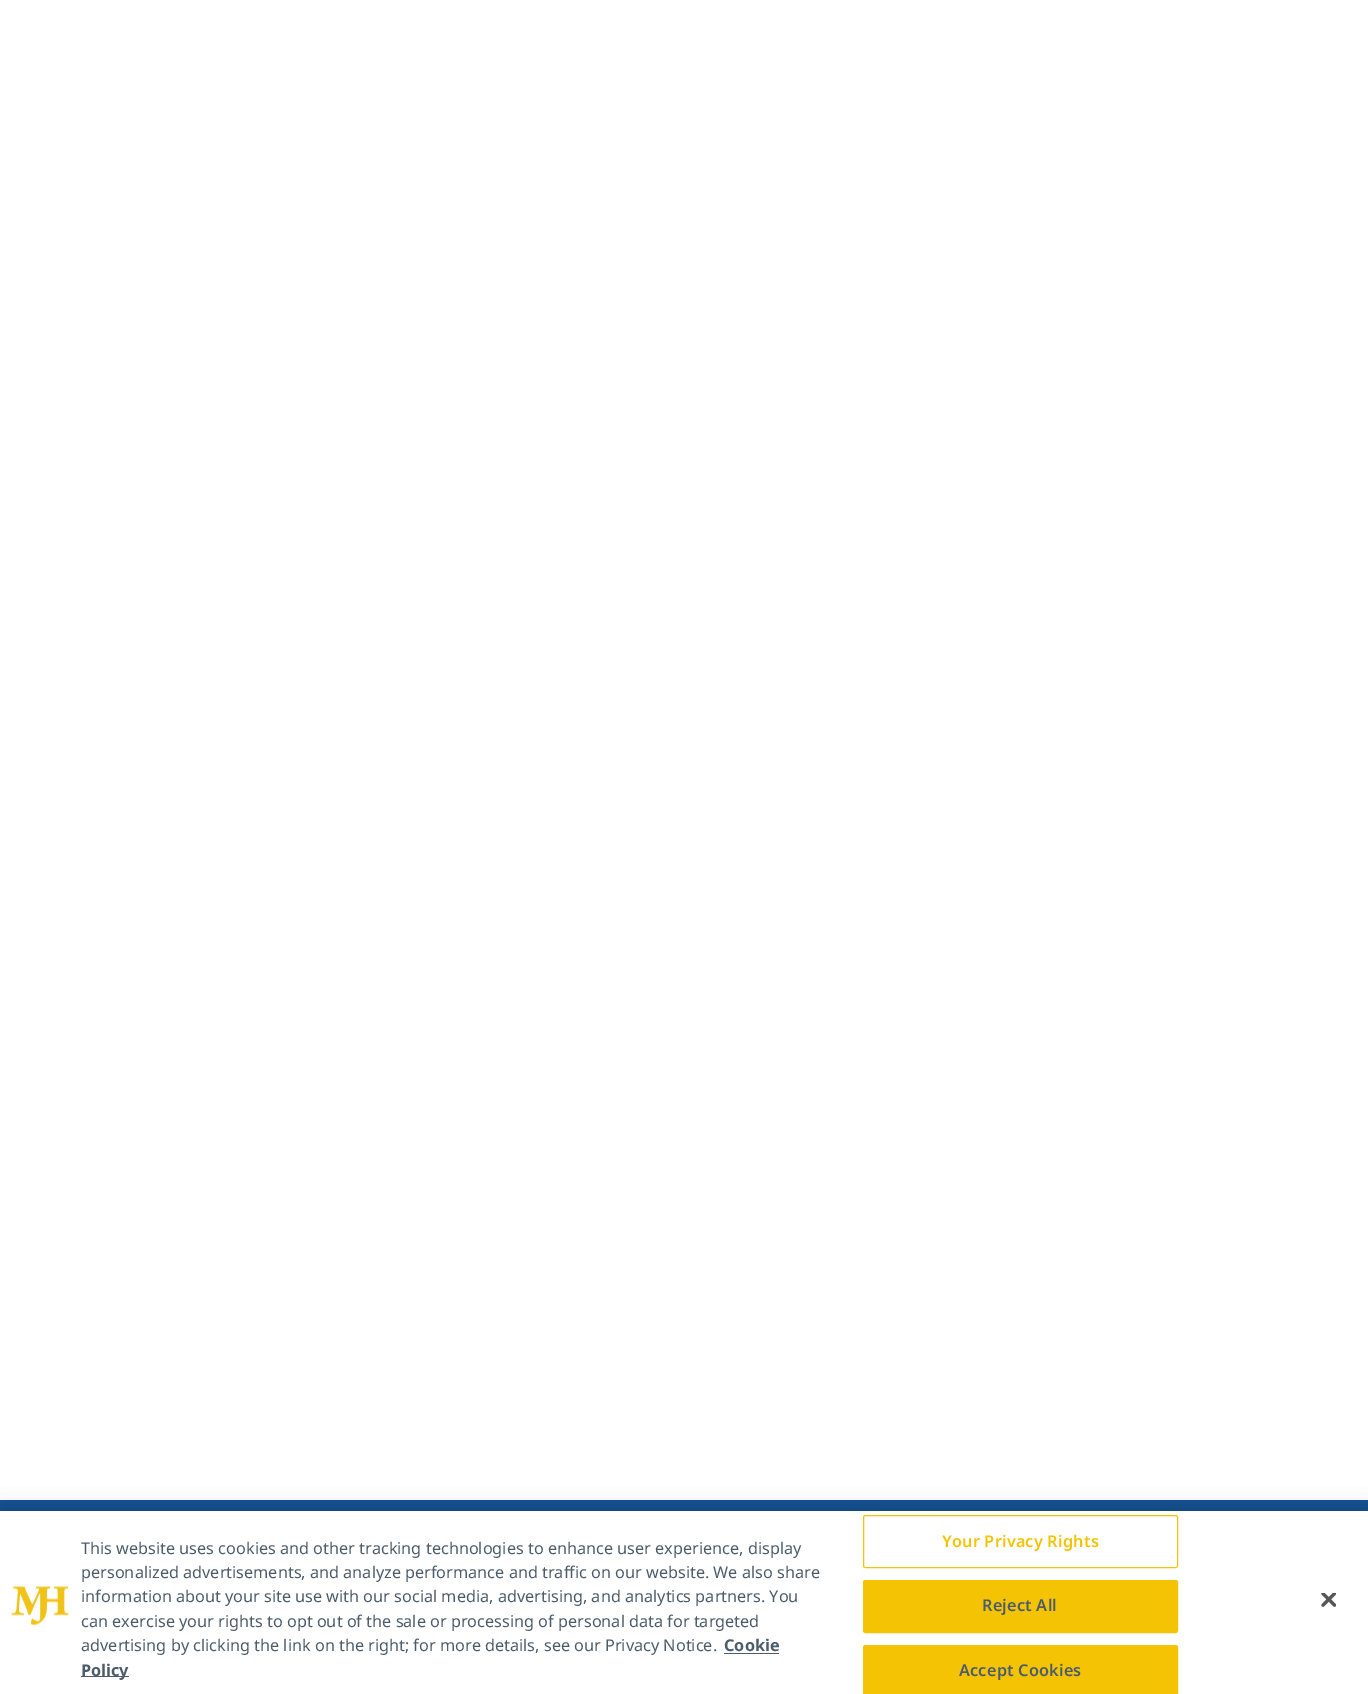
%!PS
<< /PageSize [1368 1694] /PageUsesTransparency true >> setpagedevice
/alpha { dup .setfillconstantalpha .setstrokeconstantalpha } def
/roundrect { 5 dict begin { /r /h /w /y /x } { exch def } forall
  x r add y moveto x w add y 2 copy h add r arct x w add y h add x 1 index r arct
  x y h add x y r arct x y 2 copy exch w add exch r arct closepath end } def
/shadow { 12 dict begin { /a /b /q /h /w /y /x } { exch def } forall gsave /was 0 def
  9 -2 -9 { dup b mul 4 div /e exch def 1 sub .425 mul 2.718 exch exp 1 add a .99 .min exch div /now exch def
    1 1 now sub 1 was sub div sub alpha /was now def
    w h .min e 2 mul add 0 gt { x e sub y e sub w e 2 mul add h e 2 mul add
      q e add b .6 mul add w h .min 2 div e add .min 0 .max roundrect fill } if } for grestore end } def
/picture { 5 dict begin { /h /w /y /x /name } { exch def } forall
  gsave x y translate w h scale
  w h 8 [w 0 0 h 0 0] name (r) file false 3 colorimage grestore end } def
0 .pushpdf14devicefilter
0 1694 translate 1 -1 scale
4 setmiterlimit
1 setgray
0 0 1368 1694 rectfill
0.086 0.322 0.573 setrgbcolor
0 1500 1368 11 rectfill
0 setgray
0 1511 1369 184 0 11 0.2 shadow
1 setgray
0 1511 1368 183 rectfill
(img1.rgb) 11 1586 58 40 picture
/NotoSans-Regular [16.25 0 0 -16.25 0 0] selectfont
0.298 0.361 0.42 setrgbcolor
81 1554 moveto (This website uses cookies and other tracking technologies to enhance user experience, display) show
81 1578 moveto (personalized advertisements, and analyze performance and traffic on our website. We also share) show
81 1602 moveto (information about your site use with our social media, advertising, and analytics partners. You) show
81 1627 moveto (can exercise your rights to opt out of the sale or processing of personal data for targeted) show
81 1651 moveto (advertising by clicking the link on the right; for more details, see our Privacy Notice.) show
/NotoSans-Bold [16.25 0 0 -16.25 0 0] selectfont
724 1651 moveto (Cookie) show
724 1653 55 1 rectfill
81 1676 48 1 rectfill
81 1676 moveto (Policy) show
0.957 0.769 0.016 setrgbcolor
863.5 1515.5 314 52 2 roundrect stroke
/NotoSans-SemiBold [16.25 0 0 -16.25 0 0] selectfont
942 1547 moveto 0.2 0 (Your Privacy Rights) ashow
863.5 1580.5 314 52 2 roundrect gsave fill grestore
stroke
0.298 0.361 0.42 setrgbcolor
982 1611 moveto 0.2 0 (Reject All) ashow
0.957 0.769 0.016 setrgbcolor
863.5 1645.5 314 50 2 roundrect gsave fill grestore
stroke
0.298 0.361 0.42 setrgbcolor
959 1676 moveto 0.2 0 (Accept Cookies) ashow
(img2.rgb) 1321 1593 15 14 picture
.poppdf14devicefilter showpage
